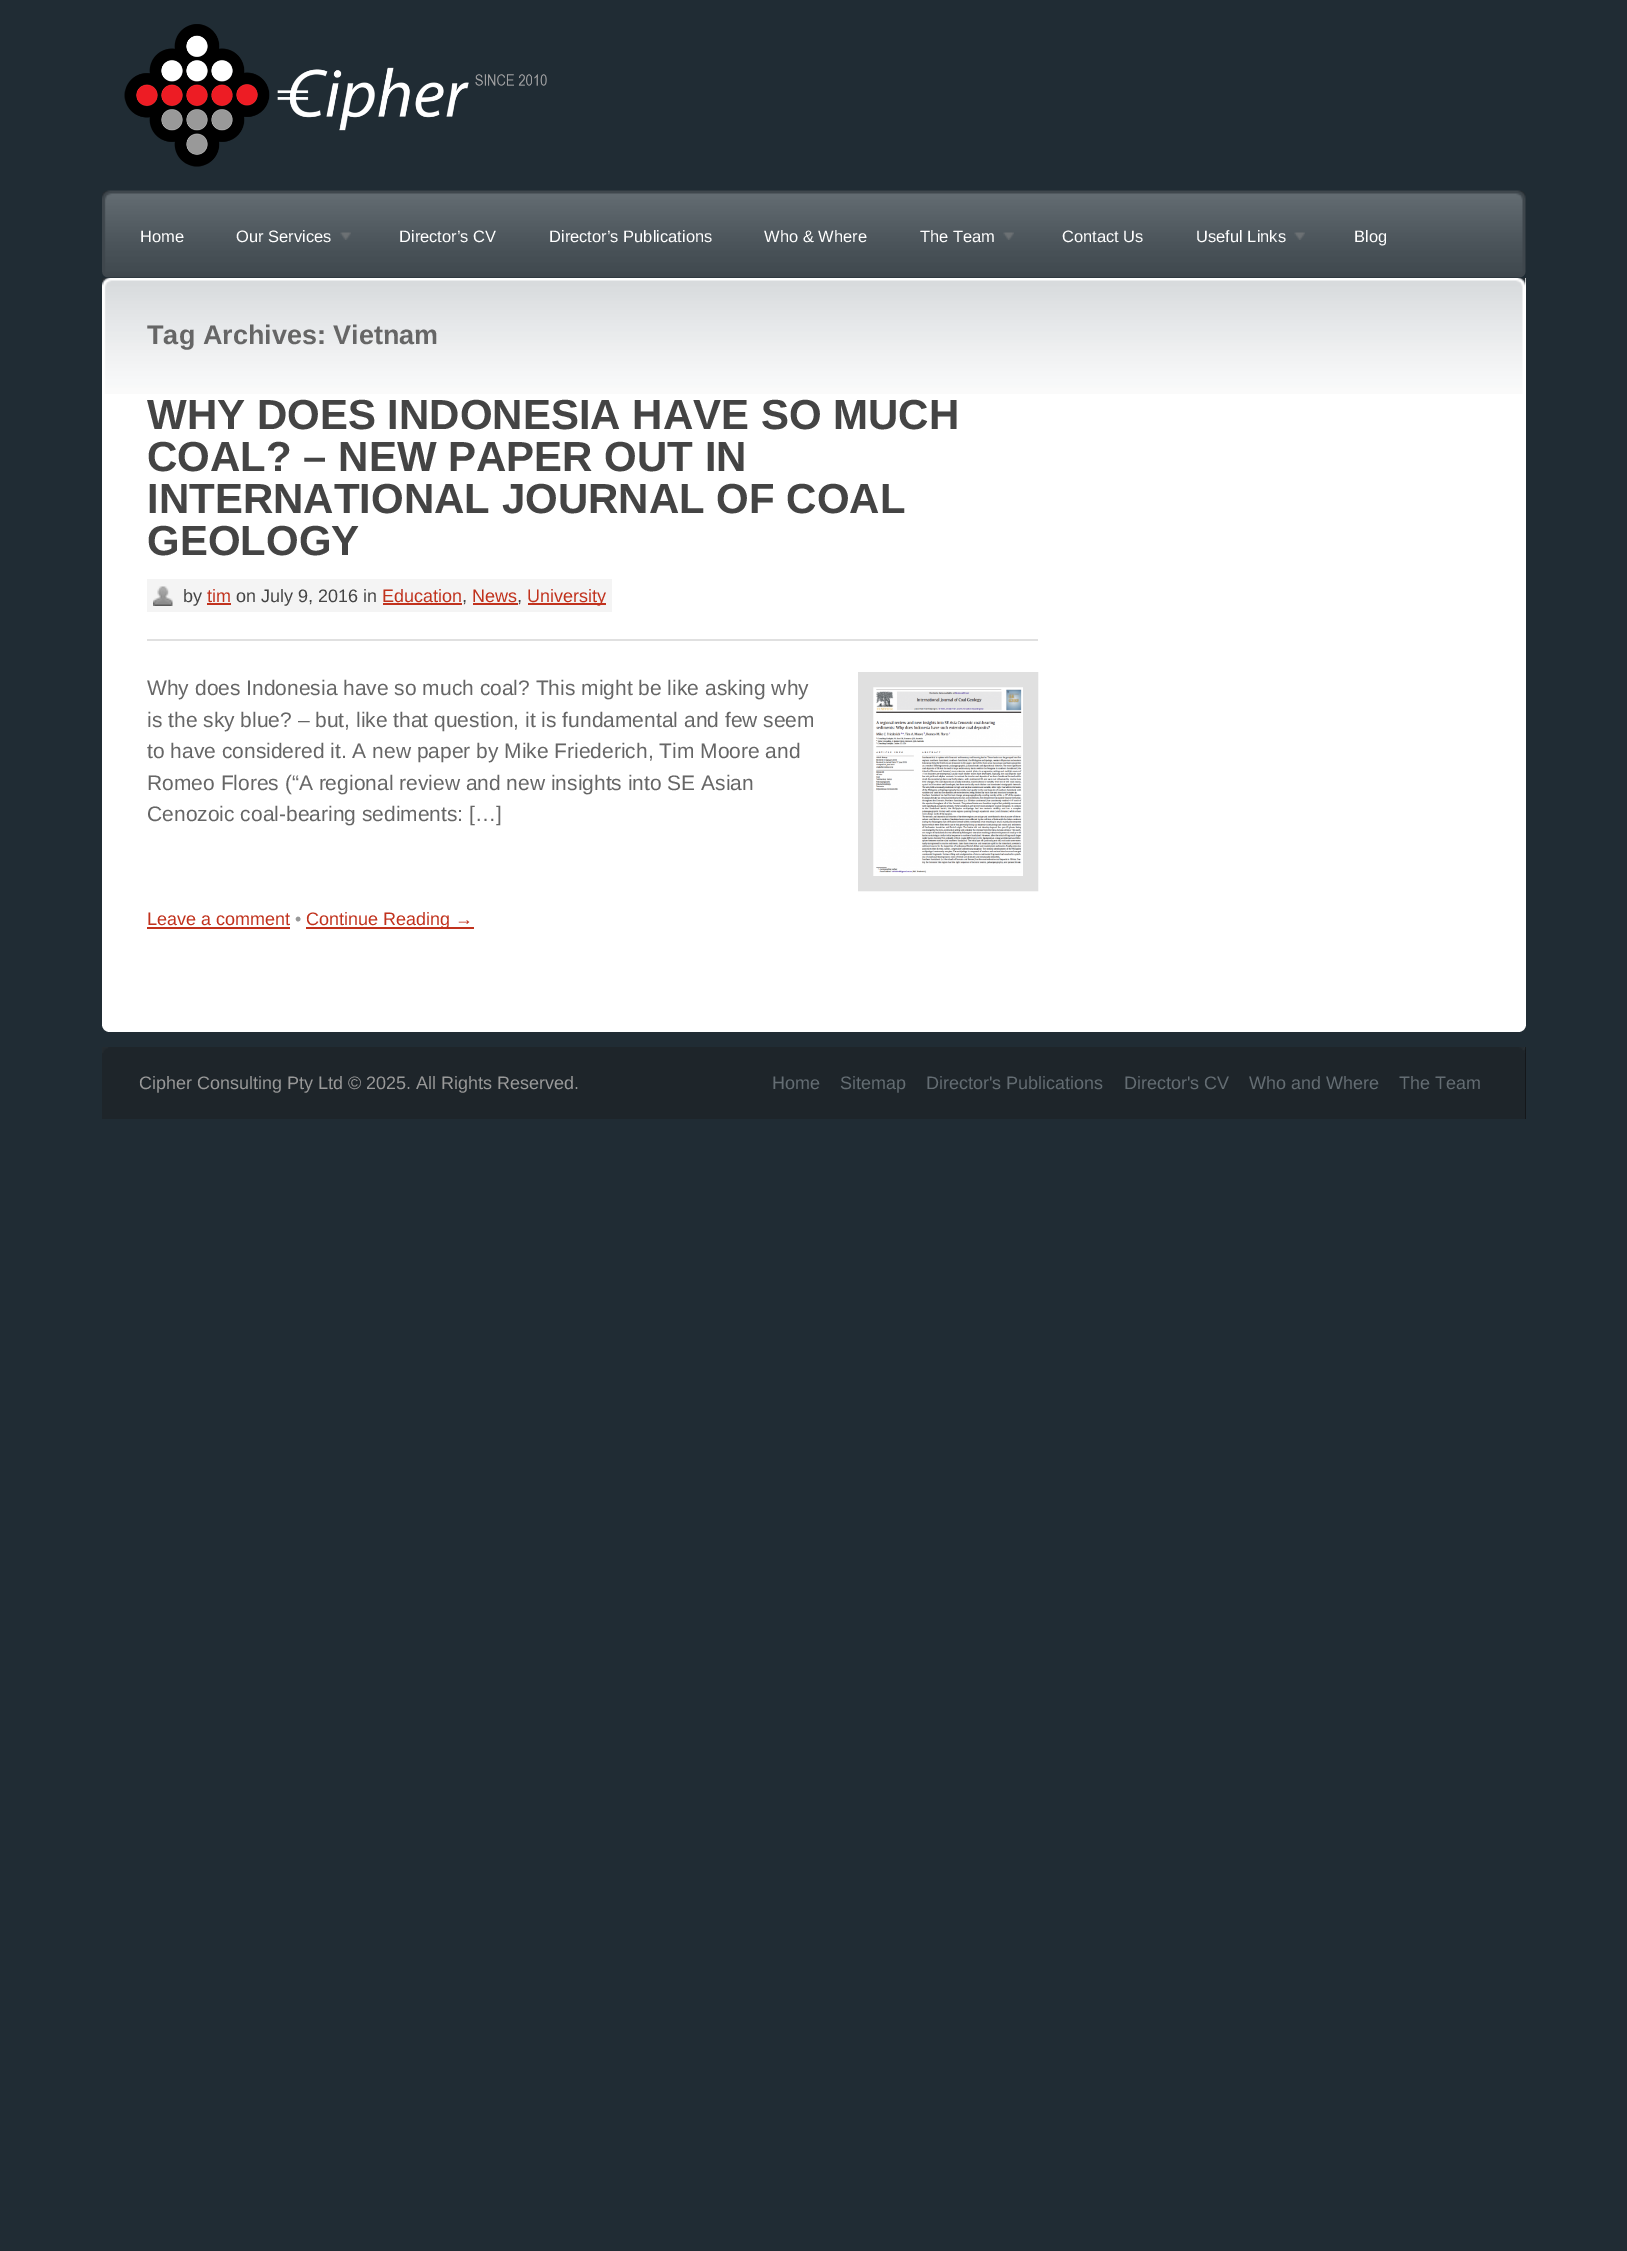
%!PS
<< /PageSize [1627 2251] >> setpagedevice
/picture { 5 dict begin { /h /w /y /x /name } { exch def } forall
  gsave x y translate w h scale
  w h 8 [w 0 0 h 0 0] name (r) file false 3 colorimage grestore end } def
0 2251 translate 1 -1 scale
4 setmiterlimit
0.125 0.173 0.204 setrgbcolor
0 0 1627 2251 rectfill
(img1.rgb) 124 24 423 143 picture
(img2.rgb) 102 190 1424 88 picture
/LiberationSans-Regular [16.5 0 0 -16.5 0 0] selectfont
1 setgray
140 242 moveto (Home) show
236 242 moveto (Our Services) show
(img3.rgb) 340 232 11 8 picture
399 242 moveto (Director’s CV) show
549 242 moveto (Director’s Publications) show
764 242 moveto (Who & Where) show
920 242 moveto (The Team) show
(img3.rgb) 1003 232 11 8 picture
1062 242 moveto (Contact Us) show
1196 242 moveto (Useful Links) show
(img4.rgb) 1294 232 11 8 picture
1354 242 moveto (Blog) show
newpath 102 278 moveto 1526 278 lineto 1526 1024 lineto 1526 1028.5 1522.5 1032 1518 1032 curveto 110 1032 lineto 105.5 1032 102 1028.5 102 1024 curveto closepath fill
(img5.rgb) 102 278 1424 116 picture
/LiberationSans-Bold [27 0 0 -27 0 0] selectfont
0.4 setgray
147 344 moveto (Tag Archives: Vietnam) show
/LiberationSans-Bold [42 0 0 -42 0 0] selectfont
0.267 setgray
147 429 moveto (WHY DOES INDONESIA HAVE SO MUCH) show
147 471 moveto (COAL? – NEW PAPER OUT IN) show
147 513 moveto (INTERNATIONAL JOURNAL OF COAL) show
147 555 moveto (GEOLOGY) show
0.957 setgray
147 579 465 33 rectfill
(img6.rgb) 153 586 20 20 picture
/LiberationSans-Regular [18 0 0 -18 0 0] selectfont
0.267 setgray
183 602 moveto (by) show
0.757 0.196 0.114 setrgbcolor
207 602 moveto (tim) show
207 603 24 2 rectfill
0.267 setgray
236 602 moveto (on July 9, 2016 in) show
0.757 0.196 0.114 setrgbcolor
382 602 moveto (Education) show
0.267 setgray
462 602 moveto (,) show
0.757 0.196 0.114 setrgbcolor
383 603 79 2 rectfill
472 602 moveto (News) show
0.267 setgray
517 602 moveto (,) show
0.757 0.196 0.114 setrgbcolor
473 603 45 2 rectfill
528 603 78 2 rectfill
527 602 moveto (University) show
0.878 setgray
147 639 891 2 rectfill
/LiberationSans-Regular [21 0 0 -21 0 0] selectfont
0.4 setgray
147 695 moveto (Why does Indonesia have so much coal? This might be like asking why) show
147 727 moveto (is the sky blue? – but, like that question, it is fundamental and few seem) show
147 758 moveto (to have considered it. A new paper by Mike Friederich, Tim Moore and) show
147 790 moveto (Romeo Flores \(“A regional review and new insights into SE Asian) show
147 821 moveto (Cenozoic coal-bearing sediments: […]) show
0.878 setgray
15 setlinewidth
865.5 679.5 165 204 rectstroke
(img7.rgb) 876 689 146 184 picture
/LiberationSans-Regular [18 0 0 -18 0 0] selectfont
0.757 0.196 0.114 setrgbcolor
147 925 moveto (Leave a comment) show
147 927 143 2 rectfill
0.6 setgray
295 925 moveto (•) show
0.757 0.196 0.114 setrgbcolor
306 927 168 2 rectfill
306 925 moveto (Continue Reading →) show
0.035 setgray
1525 1047 1 72 rectfill
(img8.rgb) 102 1047 1424 72 picture
0.6 setgray
139 1089 moveto (Cipher Consulting Pty Ltd © 2025. All Rights Reserved.) show
0.392 0.427 0.451 setrgbcolor
772 1089 moveto (Home) show
840 1089 moveto (Sitemap) show
926 1089 moveto (Director's Publications) show
1124 1089 moveto (Director's CV) show
1249 1089 moveto (Who and Where) show
1399 1089 moveto (The Team) show
showpage
